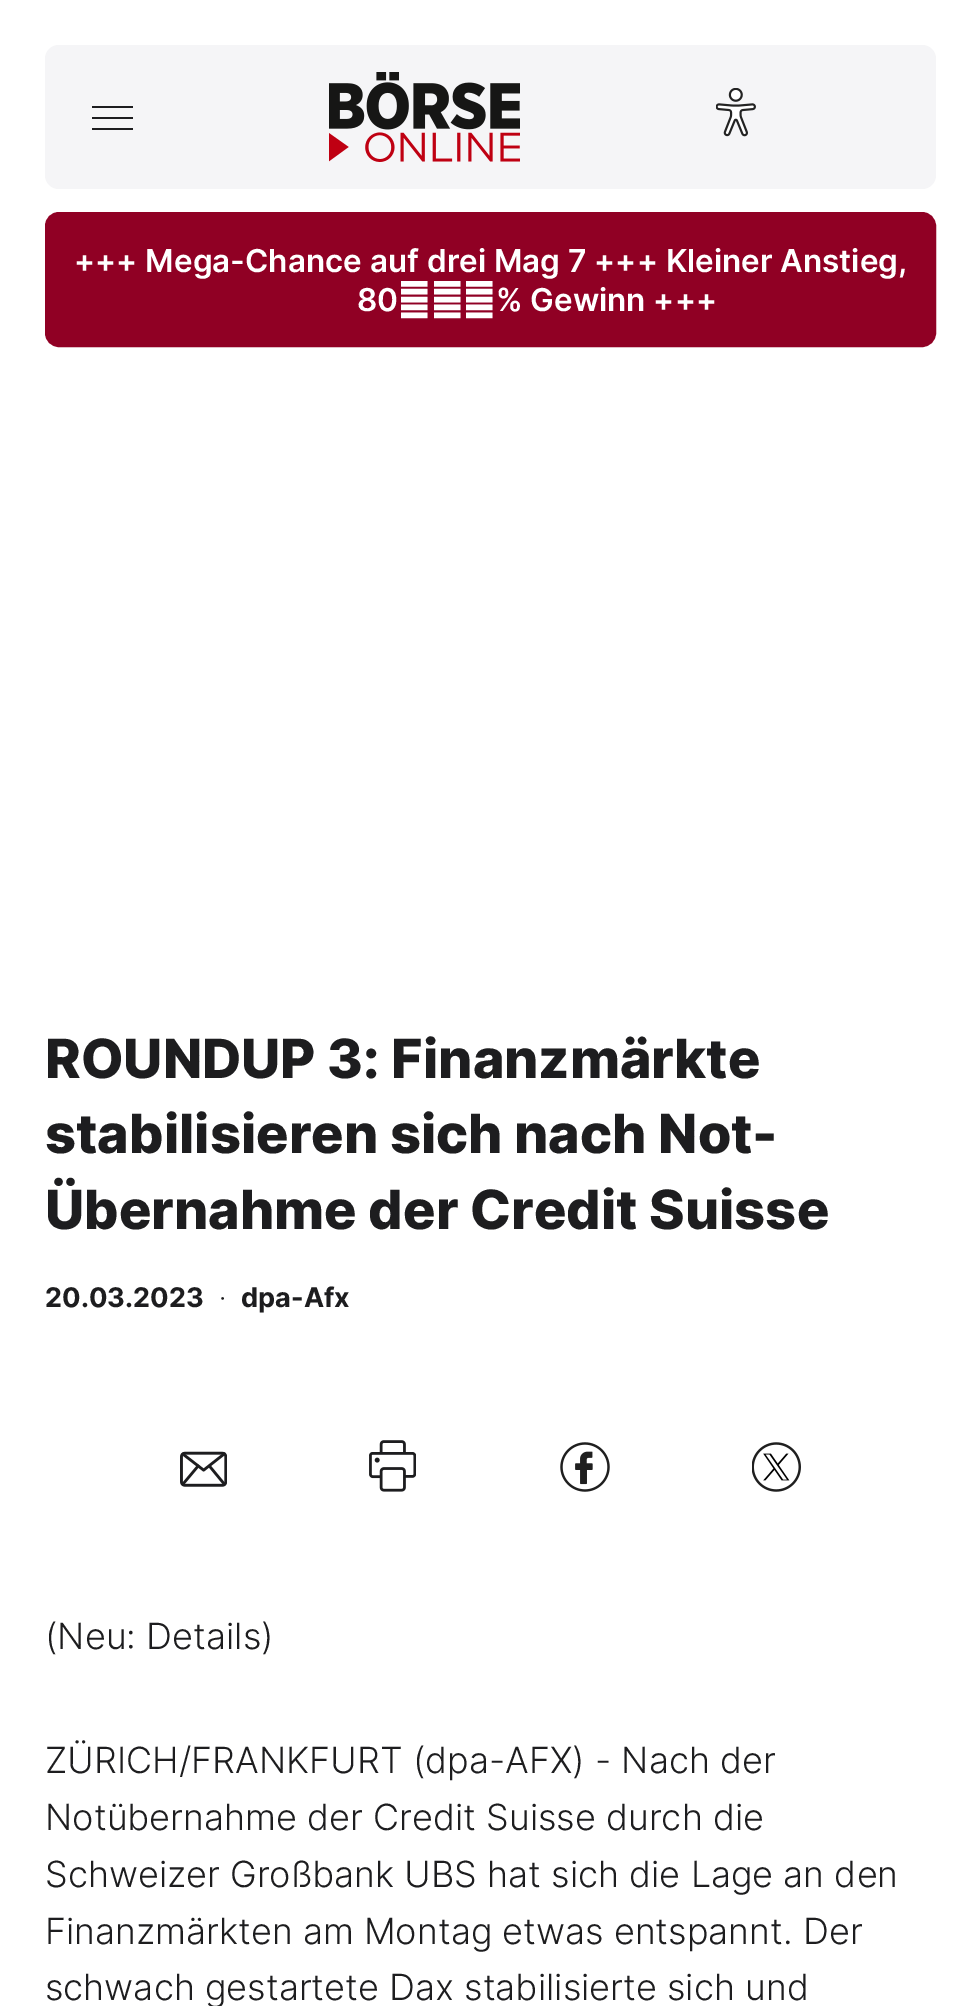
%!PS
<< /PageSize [980 2006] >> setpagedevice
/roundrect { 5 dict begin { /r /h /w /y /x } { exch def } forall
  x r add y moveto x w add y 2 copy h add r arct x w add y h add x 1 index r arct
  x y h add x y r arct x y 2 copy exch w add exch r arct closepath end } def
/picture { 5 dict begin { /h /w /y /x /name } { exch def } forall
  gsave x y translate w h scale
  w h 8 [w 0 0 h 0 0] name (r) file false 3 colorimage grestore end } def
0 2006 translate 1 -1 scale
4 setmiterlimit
1 setgray
0 0 980 2006 rectfill
0.961 0.961 0.969 setrgbcolor
45 45 891 144 14 roundrect fill
0.114 0.114 0.122 setrgbcolor
92 106 41 2 rectfill
92 117 41 2 rectfill
92 128 41 2 rectfill
(img1.rgb) 329 72 191 90 picture
(img2.rgb) 716 88 40 49 picture
0.565 0 0.141 setrgbcolor
46 213 889 133 13 roundrect gsave fill grestore
2 setlinewidth
stroke
/Inter-SemiBold [31.5 0 0 -31.5 0 0] selectfont
1 setgray
74 272 moveto (+++ Mega-Chance auf drei Mag 7 +++ Kleiner Anstieg,) show
357 311 moveto (80 % Gewinn +++) show
/Inter-ExtraBold [54 0 0 -54 0 0] selectfont
0.114 0.114 0.122 setrgbcolor
45 1078 moveto (ROUNDUP 3: Finanzmärkte) show
45 1153 moveto (stabilisieren sich nach Not-) show
45 1229 moveto (Übernahme der Credit Suisse) show
/Inter-Bold [27 0 0 -27 0 0] selectfont
45 1307 moveto (20.03.2023) show
/Inter-Light [27 0 0 -27 0 0] selectfont
219 1307 moveto (·) show
/Inter-Bold [27 0 0 -27 0 0] selectfont
241 1307 moveto (dpa-Afx) show
(img3.rgb) 180 1451 47 36 picture
(img4.rgb) 369 1440 47 52 picture
(img5.rgb) 560 1442 50 50 picture
(img6.rgb) 752 1442 49 50 picture
/Inter-Light [36 0 0 -36 0 0] selectfont
45 1649 moveto (\(Neu: Details\)) show
45 1773 moveto (ZÜRICH/FRANKFURT \(dpa-AFX\) - Nach der) show
45 1830 moveto (Notübernahme der Credit Suisse durch die) show
45 1887 moveto (Schweizer Großbank UBS hat sich die Lage an den) show
45 1944 moveto (Finanzmärkten am Montag etwas entspannt. Der) show
45 2000 moveto (schwach gestartete Dax stabilisierte sich und) show
showpage
